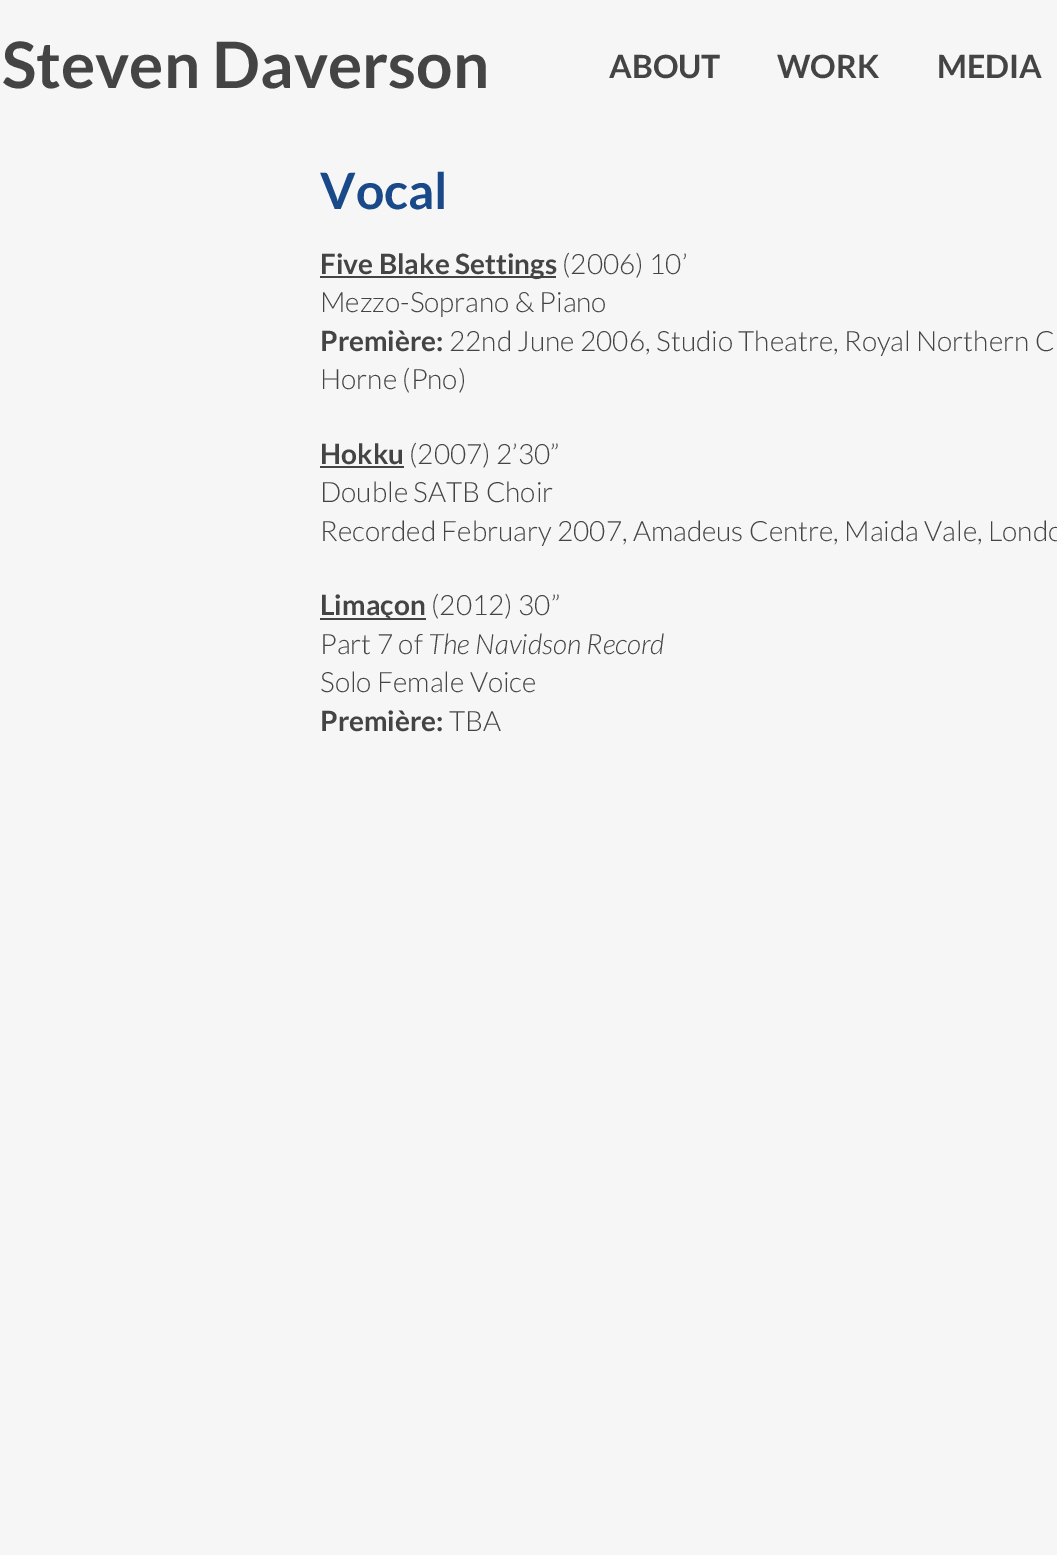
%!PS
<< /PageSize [1057 1555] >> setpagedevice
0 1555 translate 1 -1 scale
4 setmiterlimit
0.965 setgray
0 0 1057 1555 rectfill
/Lato-Bold [64 0 0 -64 0 0] selectfont
0.267 setgray
2 88 moveto (Steven Daverson) show
/Lato-Bold [32 0 0 -32 0 0] selectfont
609 78 moveto (ABOUT) show
777 78 moveto (WORK) show
937 78 moveto (MEDIA) show
/Lato-Bold [50 0 0 -50 0 0] selectfont
0.098 0.286 0.537 setrgbcolor
320 209 moveto (Vocal) show
0.267 setgray
320 276 236 2 rectfill
/Lato-Bold [28 0 0 -28 0 0] selectfont
320 274 moveto (Five Blake Settings) show
/Lato-Light [28 0 0 -28 0 0] selectfont
562 274 moveto (\(2006\) 10’) show
320 312 moveto (Mezzo-Soprano & Piano) show
/Lato-Bold [28 0 0 -28 0 0] selectfont
320 351 moveto (Première:) show
/Lato-Light [28 0 0 -28 0 0] selectfont
449 351 moveto (22nd June 2006, Studio Theatre, Royal Northern C) show
320 389 moveto (Horne \(Pno\)) show
/Lato-Bold [28 0 0 -28 0 0] selectfont
320 464 moveto (Hokku) show
320 466 84 2 rectfill
/Lato-Light [28 0 0 -28 0 0] selectfont
409 464 moveto (\(2007\) 2’30”) show
320 502 moveto (Double SATB Choir) show
320 541 moveto (Recorded February 2007, Amadeus Centre, Maida Vale, Londo) show
320 618 106 2 rectfill
/Lato-Bold [28 0 0 -28 0 0] selectfont
320 615 moveto (Limaçon) show
/Lato-Light [28 0 0 -28 0 0] selectfont
431 615 moveto (\(2012\) 30”) show
320 654 moveto (Part 7 of) show
/Lato-LightItalic [28 0 0 -28 0 0] selectfont
428 654 moveto (The Navidson Record) show
/Lato-Light [28 0 0 -28 0 0] selectfont
320 692 moveto (Solo Female Voice) show
/Lato-Bold [28 0 0 -28 0 0] selectfont
320 731 moveto (Première:) show
/Lato-Light [28 0 0 -28 0 0] selectfont
449 731 moveto (TBA) show
showpage
